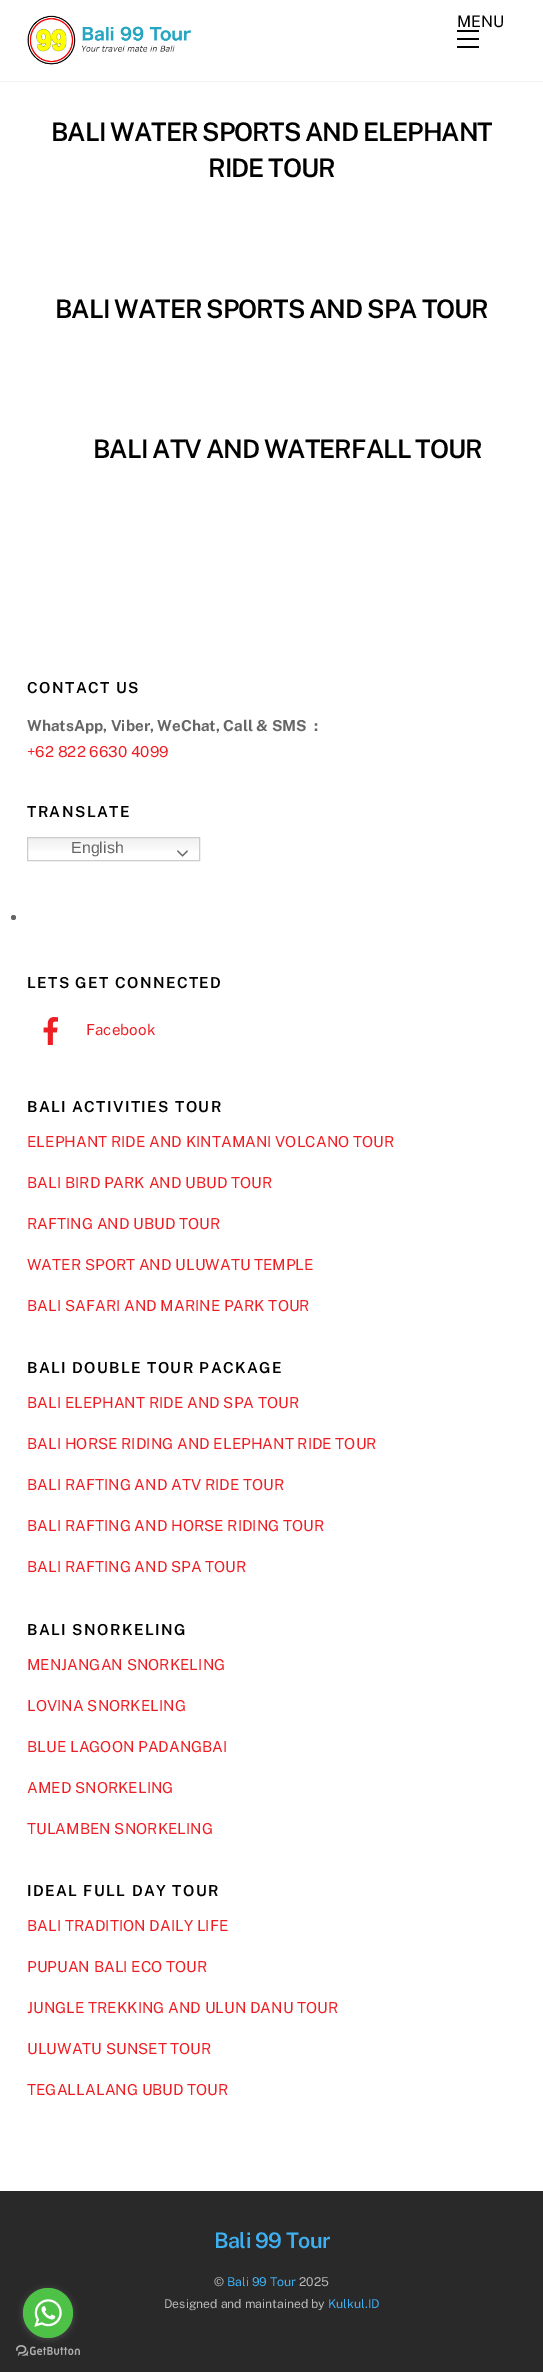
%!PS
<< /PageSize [543 2372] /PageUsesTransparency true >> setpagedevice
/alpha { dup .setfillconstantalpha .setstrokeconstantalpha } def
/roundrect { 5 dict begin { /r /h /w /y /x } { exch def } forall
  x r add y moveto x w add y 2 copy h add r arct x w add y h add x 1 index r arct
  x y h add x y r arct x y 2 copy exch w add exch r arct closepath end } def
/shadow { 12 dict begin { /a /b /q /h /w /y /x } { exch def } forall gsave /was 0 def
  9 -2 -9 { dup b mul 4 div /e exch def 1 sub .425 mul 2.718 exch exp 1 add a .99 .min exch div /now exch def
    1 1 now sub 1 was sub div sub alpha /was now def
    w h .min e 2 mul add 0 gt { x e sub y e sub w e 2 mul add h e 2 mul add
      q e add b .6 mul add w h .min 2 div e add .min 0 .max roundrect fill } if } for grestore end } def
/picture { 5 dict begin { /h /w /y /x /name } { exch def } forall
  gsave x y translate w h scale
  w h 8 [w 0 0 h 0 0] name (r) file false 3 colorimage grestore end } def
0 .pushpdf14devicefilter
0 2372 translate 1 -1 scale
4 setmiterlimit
1 setgray
0 0 543 2372 rectfill
0.949 setgray
0 81 543 1 rectfill
(img1.rgb) 27 15 165 50 picture
/PublicSans-Regular [16 0 0 -16 0 0] selectfont
0 setgray
457 27 moveto (MENU) show
457 46 22 2 rectfill
457 30 22 2 rectfill
457 38 22 2 rectfill
/PublicSans-SemiBold [25.6 0 0 -25.6 0 0] selectfont
51 141 moveto -1 0 (BALI WATER SPORTS AND ELEPHANT) ashow
208 177 moveto -1 0 (RIDE TOUR) ashow
55 318 moveto -1 0 (BALI WATER SPORTS AND SPA TOUR) ashow
93 458 moveto -1 0 (BALI ATV AND WATERFALL TOUR) ashow
/PublicSans-SemiBold [15.2 0 0 -15.2 0 0] selectfont
27 693 moveto 1.4 0 (CONTACT US) ashow
/PublicSans-Bold [15.2 0 0 -15.2 0 0] selectfont
0.4 setgray
27 731 moveto (WhatsApp, Viber, WeChat, Call & SMS  :) show
/PublicSans-Regular [15.2 0 0 -15.2 0 0] selectfont
0.929 0.118 0.141 setrgbcolor
27 757 moveto (+62 822 6630 4099) show
/PublicSans-SemiBold [15.2 0 0 -15.2 0 0] selectfont
0 setgray
27 817 moveto 1.4 0 (TRANSLATE) ashow
gsave newpath 28 838 moveto 199 838 lineto 199 851 lineto 28 851 lineto closepath clip newpath
<< /ShadingType 2 /ColorSpace /DeviceRGB /Coords [114 837 114 861] /Extend [true true] /Function << /FunctionType 3 /Domain [0 1] /Functions [<< /FunctionType 2 /Domain [0 1] /C0 [0.937 0.937 0.937] /C1 [1 1 1] /N 1 >> << /FunctionType 2 /Domain [0 1] /C0 [1 1 1] /C1 [1 1 1] /N 1 >>] /Bounds [0.7] /Encode [0 1 0 1] >> >> shfill grestore
0.8 setgray
27.5 837.5 172 23 rectstroke
/LiberationSans-Regular [16 0 0 -16 0 0] selectfont
0.4 setgray
71 853 moveto (English) show
(img2.rgb) 177 850 11 7 picture
newpath 13.5 917.5 2.5 0 360 arc closepath fill
/PublicSans-SemiBold [15.2 0 0 -15.2 0 0] selectfont
0 setgray
27 988 moveto 1.4 0 (LETS GET CONNECTED) ashow
(img3.rgb) 43 1017 15 28 picture
/PublicSans-Regular [15.2 0 0 -15.2 0 0] selectfont
0.929 0.118 0.141 setrgbcolor
86 1035 moveto (Facebook) show
/PublicSans-SemiBold [15.2 0 0 -15.2 0 0] selectfont
0 setgray
27 1112 moveto 1.4 0 (BALI ACTIVITIES TOUR) ashow
/PublicSans-Regular [15.2 0 0 -15.2 0 0] selectfont
0.929 0.118 0.141 setrgbcolor
27 1147 moveto (ELEPHANT RIDE AND KINTAMANI VOLCANO TOUR) show
27 1188 moveto (BALI BIRD PARK AND UBUD TOUR) show
27 1229 moveto (RAFTING AND UBUD TOUR) show
27 1270 moveto (WATER SPORT AND ULUWATU TEMPLE) show
27 1311 moveto (BALI SAFARI AND MARINE PARK TOUR) show
/PublicSans-SemiBold [15.2 0 0 -15.2 0 0] selectfont
0 setgray
27 1373 moveto 1.4 0 (BALI DOUBLE TOUR PACKAGE) ashow
/PublicSans-Regular [15.2 0 0 -15.2 0 0] selectfont
0.929 0.118 0.141 setrgbcolor
27 1408 moveto (BALI ELEPHANT RIDE AND SPA TOUR) show
27 1449 moveto (BALI HORSE RIDING AND ELEPHANT RIDE TOUR) show
27 1490 moveto (BALI RAFTING AND ATV RIDE TOUR) show
27 1531 moveto (BALI RAFTING AND HORSE RIDING TOUR) show
27 1572 moveto (BALI RAFTING AND SPA TOUR) show
/PublicSans-SemiBold [15.2 0 0 -15.2 0 0] selectfont
0 setgray
27 1635 moveto 1.4 0 (BALI SNORKELING) ashow
/PublicSans-Regular [15.2 0 0 -15.2 0 0] selectfont
0.929 0.118 0.141 setrgbcolor
27 1670 moveto (MENJANGAN SNORKELING) show
27 1711 moveto (LOVINA SNORKELING) show
27 1752 moveto (BLUE LAGOON PADANGBAI) show
27 1793 moveto (AMED SNORKELING) show
27 1834 moveto (TULAMBEN SNORKELING) show
/PublicSans-SemiBold [15.2 0 0 -15.2 0 0] selectfont
0 setgray
27 1896 moveto 1.4 0 (IDEAL FULL DAY TOUR) ashow
/PublicSans-Regular [15.2 0 0 -15.2 0 0] selectfont
0.929 0.118 0.141 setrgbcolor
27 1931 moveto (BALI TRADITION DAILY LIFE) show
27 1972 moveto (PUPUAN BALI ECO TOUR) show
27 2013 moveto (JUNGLE TREKKING AND ULUN DANU TOUR) show
27 2054 moveto (ULUWATU SUNSET TOUR) show
27 2095 moveto (TEGALLALANG UBUD TOUR) show
0.161 setgray
0 2192 543 180 rectfill
0.153 setgray
0 2191 543 1 rectfill
/PublicSans-SemiBold [21.5 0 0 -21.5 0 0] selectfont
0.243 0.686 0.941 setrgbcolor
214 2248 moveto -0.6 0 (Bali 99 Tour) ashow
/PublicSans-Regular [12.25 0 0 -12.25 0 0] selectfont
0.722 setgray
214 2286 moveto (©) show
0.243 0.686 0.941 setrgbcolor
227 2286 moveto (Bali 99 Tour) show
0.722 setgray
299 2286 moveto (2025) show
164 2308 moveto (Designed and maintained by) show
0.243 0.686 0.941 setrgbcolor
328 2308 moveto (Kulkul.ID) show
(img5.rgb) 16 2345 64 11 picture
0.533 setgray
23 2289 50 50 25 3.5 0.4 shadow
0.302 0.761 0.278 setrgbcolor
newpath 48 2313 25 0 360 arc closepath fill
(img4.rgb) 34 2299 28 28 picture
.poppdf14devicefilter showpage
